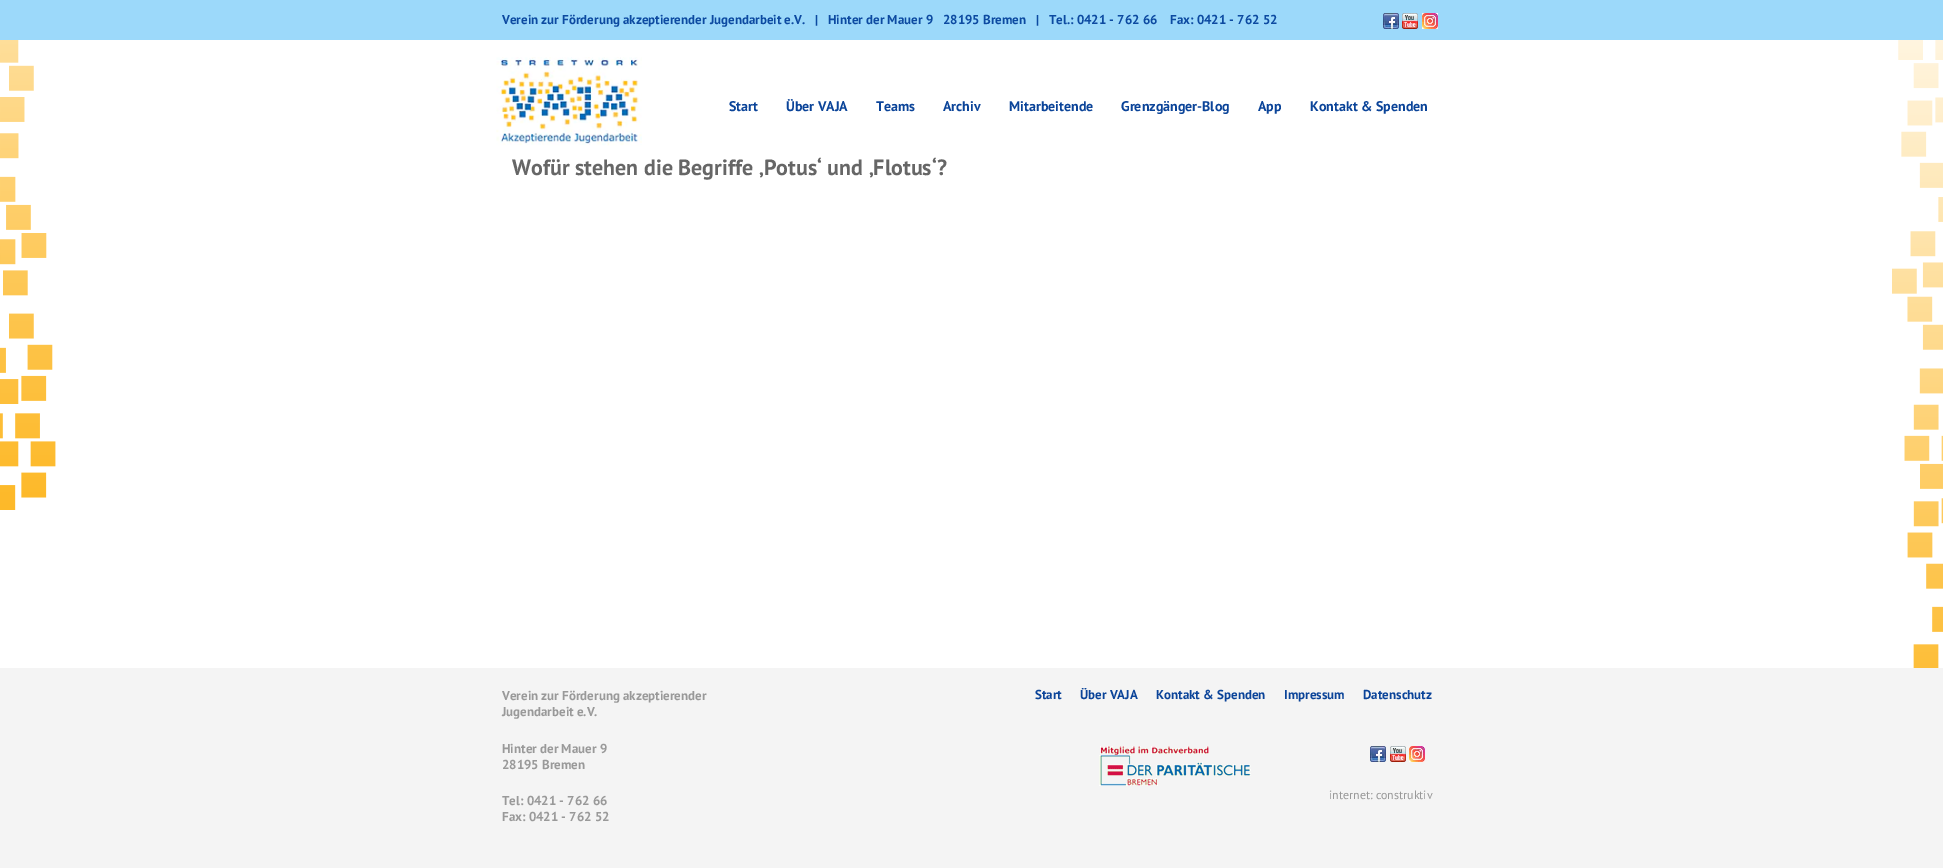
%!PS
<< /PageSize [1943 868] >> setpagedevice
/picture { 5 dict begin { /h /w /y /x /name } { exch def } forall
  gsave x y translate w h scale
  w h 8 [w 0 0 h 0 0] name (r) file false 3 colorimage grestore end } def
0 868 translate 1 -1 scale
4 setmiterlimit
1 setgray
0 0 1943 868 rectfill
0.612 0.851 0.98 setrgbcolor
0 0 1943 40 rectfill
/PTSans-Bold [13 0 0 -13 0 0] selectfont
0.047 0.29 0.631 setrgbcolor
502 24 moveto (Verein zur Förderung akzeptierender Jugendarbeit e.V.   |   Hinter der Mauer 9) show
943 24 moveto (28195 Bremen   |   Tel.: 0421 - 762 66) show
1170 24 moveto (Fax: 0421 - 762 52) show
(img1.rgb) 1383 13 16 16 picture
(img2.rgb) 1402 13 16 16 picture
(img3.rgb) 1422 13 16 16 picture
(img4.rgb) 0 40 56 470 picture
(img5.rgb) 496 57 146 89 picture
/PTSans-Bold [14 0 0 -14 0 0] selectfont
0.043 0.267 0.6 setrgbcolor
729 111 moveto (Start) show
786 111 moveto (Über VAJA) show
876 111 moveto (Teams) show
943 111 moveto (Archiv) show
1009 111 moveto (Mitarbeitende) show
1121 111 moveto (Grenzgänger-Blog) show
1258 111 moveto (App) show
1310 111 moveto (Kontakt & Spenden) show
(img6.rgb) 1892 40 51 628 picture
/PTSans-Bold [22 0 0 -22 0 0] selectfont
0.4 setgray
512 175 moveto (Wofür stehen die Begriffe ‚Potus‘ und ‚Flotus‘?) show
0.957 setgray
0 668 1943 200 rectfill
/PTSans-Bold [13 0 0 -13 0 0] selectfont
0.6 setgray
502 700 moveto (Verein zur Förderung akzeptierender) show
502 716 moveto (Jugendarbeit e.V.) show
502 753 moveto (Hinter der Mauer 9) show
502 769 moveto (28195 Bremen) show
502 805 moveto (Tel: 0421 - 762 66) show
502 821 moveto (Fax: 0421 - 762 52) show
0.043 0.267 0.6 setrgbcolor
1035 699 moveto (Start) show
1080 699 moveto (Über VAJA) show
1156 699 moveto (Kontakt & Spenden) show
1284 699 moveto (Impressum) show
1363 699 moveto (Datenschutz) show
(img7.rgb) 1099 746 152 40 picture
(img8.rgb) 1370 746 16 16 picture
(img9.rgb) 1390 746 16 16 picture
(img3.rgb) 1409 746 16 16 picture
/PTSans-Regular [12 0 0 -12 0 0] selectfont
0.6 setgray
1329 799 moveto (internet: construktiv) show
showpage
